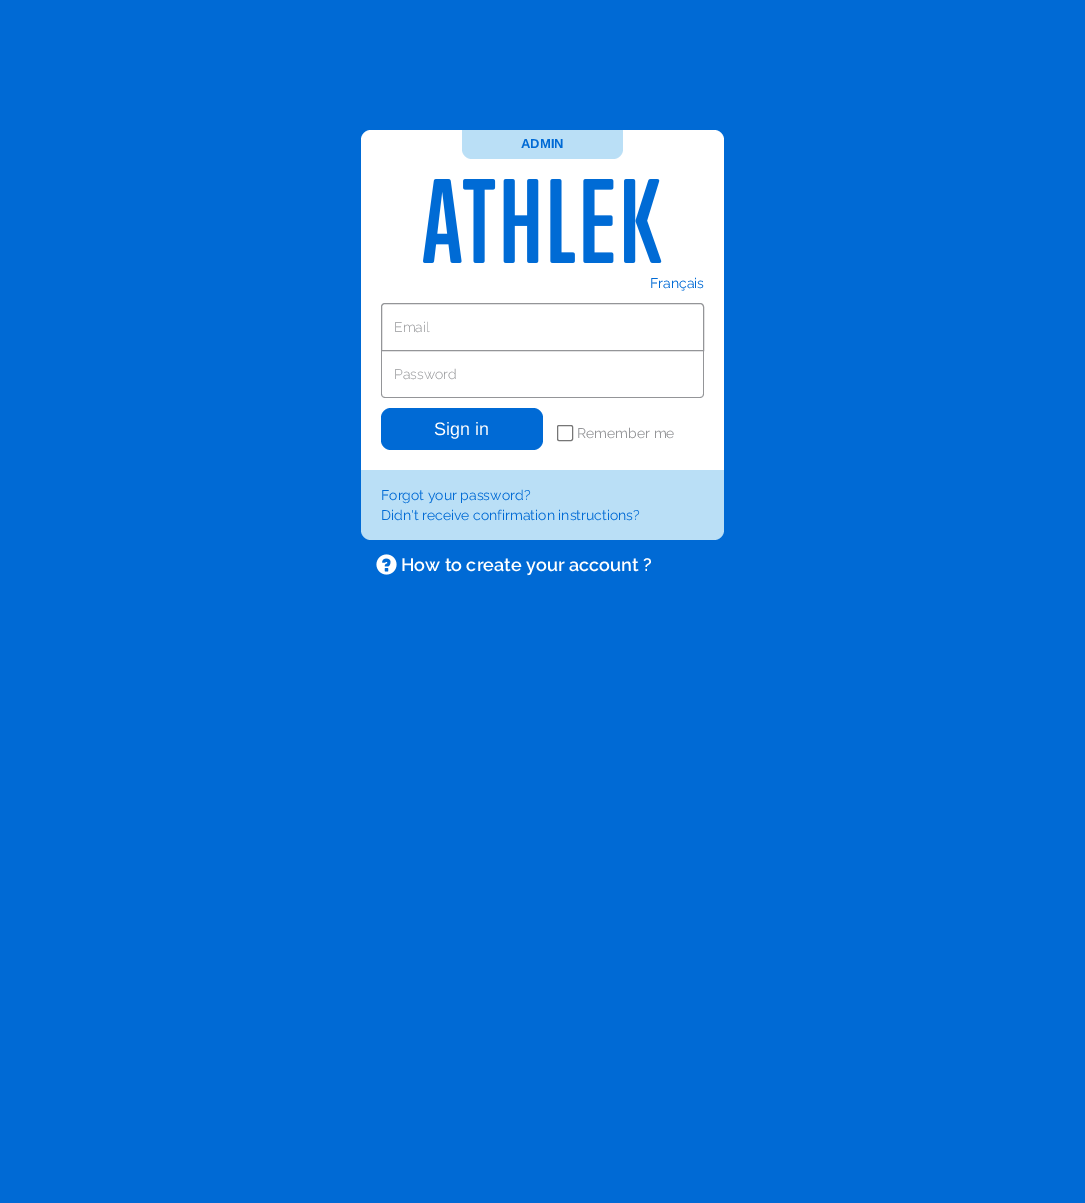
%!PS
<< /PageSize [1085 1203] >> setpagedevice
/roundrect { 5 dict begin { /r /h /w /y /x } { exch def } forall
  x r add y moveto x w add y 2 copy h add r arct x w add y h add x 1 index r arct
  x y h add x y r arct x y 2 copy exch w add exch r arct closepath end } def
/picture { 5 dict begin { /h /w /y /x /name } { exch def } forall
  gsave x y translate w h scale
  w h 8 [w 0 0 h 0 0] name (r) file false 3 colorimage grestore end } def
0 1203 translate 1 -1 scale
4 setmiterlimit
0 0.416 0.835 setrgbcolor
0 0 1085 1203 rectfill
1 setgray
newpath 371 130 moveto 714 130 lineto 719.5 130 724 134.5 724 140 curveto 724 470 lineto 361 470 lineto 361 140 lineto 361 134.5 365.5 130 371 130 curveto closepath fill
0.729 0.875 0.965 setrgbcolor
newpath 462 130 moveto 623 130 lineto 623 149 lineto 623 154.5 618.5 159 613 159 curveto 472 159 lineto 466.5 159 462 154.5 462 149 curveto closepath fill
/LiberationSans-Bold [13 0 0 -13 0 0] selectfont
0 0.416 0.835 setrgbcolor
521 148 moveto (ADMIN) show
(img1.rgb) 423 179 239 84 picture
/Raleway-Regular [14 0 0 -14 0 0] selectfont
650 288 moveto (Français) show
0.58 0.584 0.596 setrgbcolor
newpath 385 303.5 moveto 700 303.5 lineto 702 303.5 703.5 305 703.5 307 curveto 703.5 350.5 lineto 381.5 350.5 lineto 381.5 307 lineto 381.5 305 383 303.5 385 303.5 curveto closepath stroke
/Raleway-Light [14 0 0 -14 0 0] selectfont
394 332 moveto (Email) show
newpath 381 351 moveto 704 351 lineto 704 394 lineto 704 396 702 398 700 398 curveto 385 398 lineto 383 398 381 396 381 394 curveto closepath 382 351 moveto 703 351 lineto 703 394 lineto 703 396 702 397 700 397 curveto 385 397 lineto 383 397 382 396 382 394 curveto closepath eofill
394 379 moveto (Password) show
0 0.416 0.835 setrgbcolor
381 408 162 42 10 roundrect fill
/LiberationSans-Regular [18 0 0 -18 0 0] selectfont
1 setgray
434 435 moveto (Sign in) show
0.463 setgray
557.5 425.5 15 15 1.5 roundrect stroke
/Raleway-Regular [14 0 0 -14 0 0] selectfont
0.58 0.584 0.596 setrgbcolor
577 438 moveto (Remember me) show
0.729 0.875 0.965 setrgbcolor
newpath 361 470 moveto 724 470 lineto 724 530 lineto 724 535.5 719.5 540 714 540 curveto 371 540 lineto 365.5 540 361 535.5 361 530 curveto closepath fill
0 0.416 0.835 setrgbcolor
381 500 moveto (Forgot your password?) show
381 520 moveto (Didn't receive confirmation instructions?) show
(img2.rgb) 376 554 21 21 picture
/Raleway-SemiBold [18 0 0 -18 0 0] selectfont
1 setgray
401 571 moveto (How to create your account ?) show
showpage
